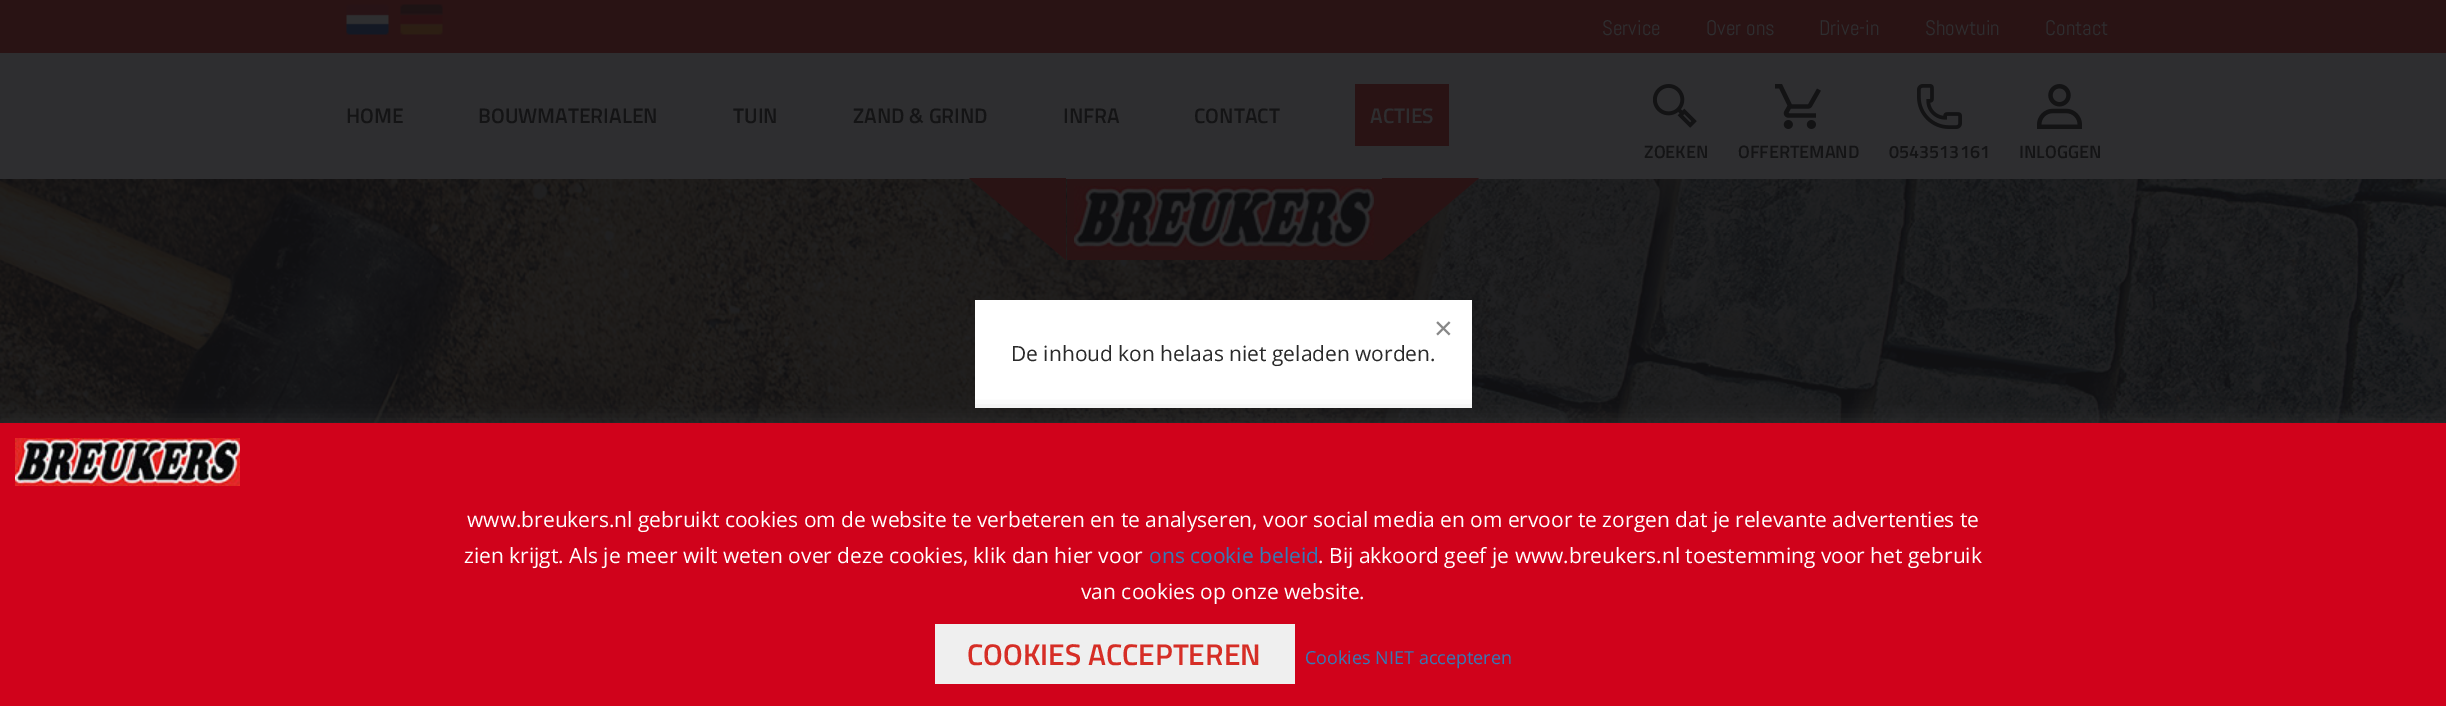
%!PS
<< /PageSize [2446 706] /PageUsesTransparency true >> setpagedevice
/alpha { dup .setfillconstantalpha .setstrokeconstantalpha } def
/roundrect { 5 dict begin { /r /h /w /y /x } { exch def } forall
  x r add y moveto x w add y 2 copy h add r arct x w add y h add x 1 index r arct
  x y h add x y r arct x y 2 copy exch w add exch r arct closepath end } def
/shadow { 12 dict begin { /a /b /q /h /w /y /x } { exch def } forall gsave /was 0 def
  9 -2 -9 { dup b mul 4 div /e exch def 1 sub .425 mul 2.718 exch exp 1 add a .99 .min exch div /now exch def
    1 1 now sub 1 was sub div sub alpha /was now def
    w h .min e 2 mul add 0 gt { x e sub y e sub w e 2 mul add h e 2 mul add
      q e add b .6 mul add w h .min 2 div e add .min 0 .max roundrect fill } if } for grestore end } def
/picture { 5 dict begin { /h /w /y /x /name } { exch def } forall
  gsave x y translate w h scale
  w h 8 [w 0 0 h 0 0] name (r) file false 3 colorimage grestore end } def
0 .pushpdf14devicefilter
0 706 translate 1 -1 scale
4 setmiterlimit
1 setgray
0 0 2446 706 rectfill
0.161 0.075 0.078 setrgbcolor
0 0 2446 53 rectfill
(img1.rgb) 346 4 43 31 picture
(img2.rgb) 400 4 43 31 picture
/Abel-Regular [21 0 0 -21 0 0] selectfont
0.18 0.18 0.188 setrgbcolor
1602 35 moveto (Service) show
1706 35 moveto (Over ons) show
1819 35 moveto (Drive-in) show
1925 35 moveto (Showtuin) show
2045 35 moveto (Contact) show
0 53 2446 126 rectfill
/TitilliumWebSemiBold-SemiBold [21 0 0 -21 0 0] selectfont
0.078 0.078 0.082 setrgbcolor
346 123 moveto (HOME) show
478 123 moveto (BOUWMATERIALEN) show
733 123 moveto (TUIN) show
853 123 moveto (ZAND & GRIND) show
1063 123 moveto (INFRA) show
1194 123 moveto (CONTACT) show
0.161 0.075 0.078 setrgbcolor
1355 84 94 62 rectfill
0.18 0.18 0.188 setrgbcolor
1370 123 moveto (ACTIES) show
(img3.rgb) 1653 84 44 44 picture
/TitilliumWebSemiBold-SemiBold [18 0 0 -18 0 0] selectfont
0.078 0.078 0.082 setrgbcolor
1644 158 moveto (ZOEKEN) show
(img4.rgb) 1775 84 46 45 picture
1738 158 moveto (OFFERTEMAND) show
(img5.rgb) 1917 84 45 45 picture
1889 158 moveto (0543513161) show
(img6.rgb) 2037 84 45 45 picture
2019 158 moveto (INLOGGEN) show
(img8.rgb) 0 179 2446 244 picture
0.161 0.075 0.078 setrgbcolor
1067 179 315 81 rectfill
newpath 1066 178 moveto 1066 260 lineto 969 178 lineto closepath fill
(img7.rgb) 1074 186 300 65 picture
newpath 1382 178 moveto 1479 178 lineto 1382 260 lineto closepath fill
1 setgray
975 300 497 108 rectfill
/LiberationSans-Regular [32 0 0 -32 0 0] selectfont
0.533 setgray
1434 339 moveto (×) show
/OpenSans-Regular [21 0 0 -21 0 0] selectfont
0.165 setgray
1011 361 moveto (De inhoud kon helaas niet geladen worden.) show
0.196 setgray
0 420 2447 284 0 9 0.75 shadow
0.816 0.008 0.106 setrgbcolor
0 423 2446 283 rectfill
(img9.rgb) 15 438 225 48 picture
1 setgray
467 527 moveto (www.breukers.nl gebruikt cookies om de website te verbeteren en te analyseren, voor social media en om ervoor te zorgen dat je relevante advertenties te) show
464 563 moveto (zien krijgt. Als je meer wilt weten over deze cookies, klik dan hier voor) show
0.2 0.478 0.718 setrgbcolor
1149 563 moveto (ons cookie beleid) show
1 setgray
1318 563 moveto (. Bij akkoord geef je www.breukers.nl toestemming voor het gebruik) show
1081 599 moveto (van cookies op onze website.) show
0.937 setgray
935 624 360 60 rectfill
/TitilliumWebSemiBold-SemiBold [30 0 0 -30 0 0] selectfont
0.839 0.18 0.149 setrgbcolor
967 665 moveto (COOKIES ACCEPTEREN) show
/OpenSans-Regular [18 0 0 -18 0 0] selectfont
0.2 0.478 0.718 setrgbcolor
1305 664 moveto (Cookies NIET accepteren) show
.poppdf14devicefilter showpage
